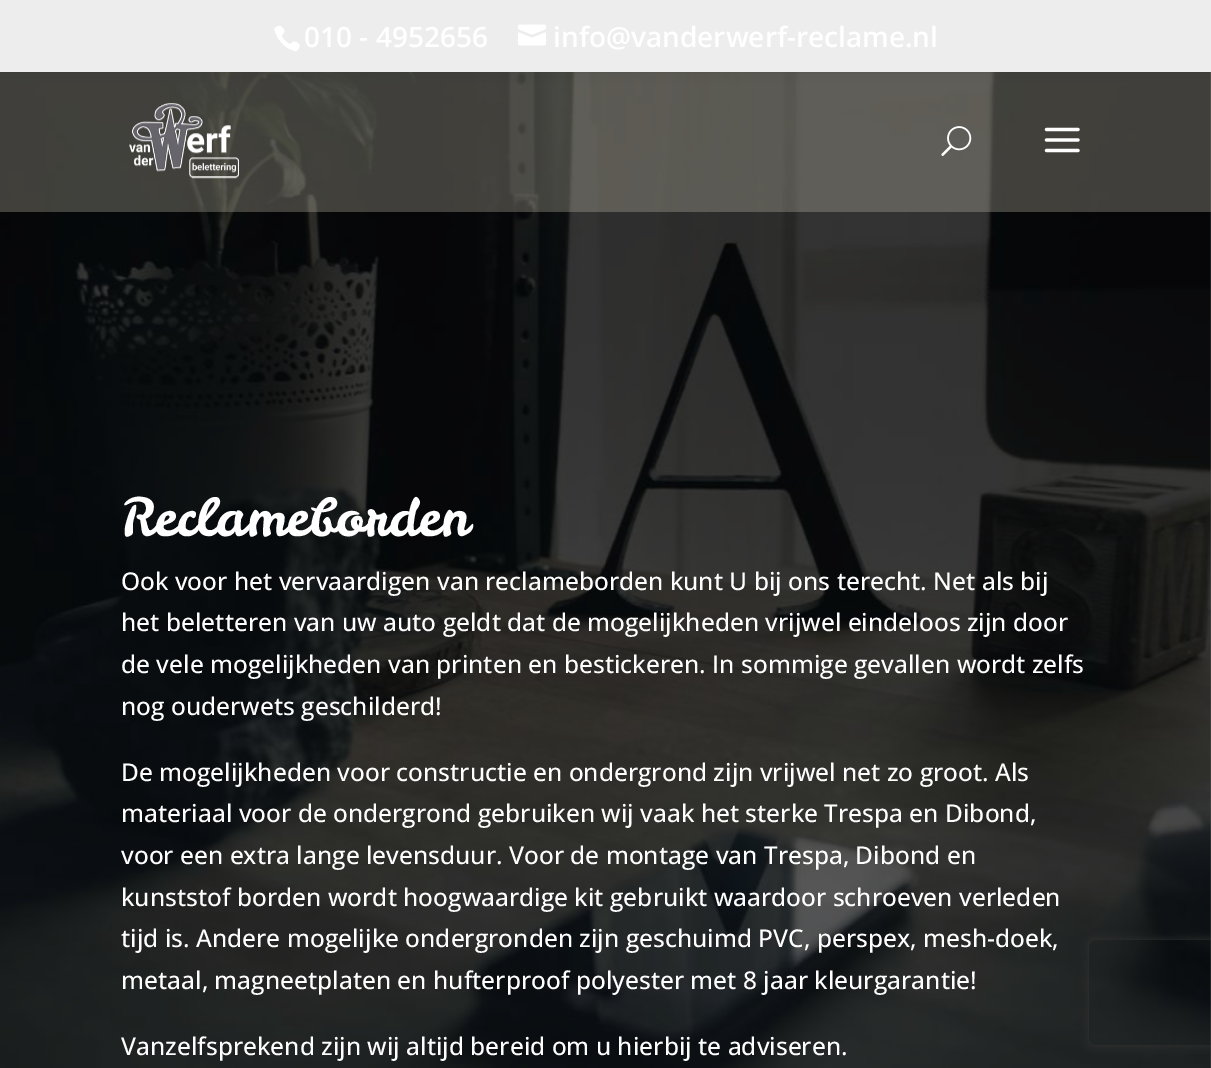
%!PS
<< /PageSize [1211 1068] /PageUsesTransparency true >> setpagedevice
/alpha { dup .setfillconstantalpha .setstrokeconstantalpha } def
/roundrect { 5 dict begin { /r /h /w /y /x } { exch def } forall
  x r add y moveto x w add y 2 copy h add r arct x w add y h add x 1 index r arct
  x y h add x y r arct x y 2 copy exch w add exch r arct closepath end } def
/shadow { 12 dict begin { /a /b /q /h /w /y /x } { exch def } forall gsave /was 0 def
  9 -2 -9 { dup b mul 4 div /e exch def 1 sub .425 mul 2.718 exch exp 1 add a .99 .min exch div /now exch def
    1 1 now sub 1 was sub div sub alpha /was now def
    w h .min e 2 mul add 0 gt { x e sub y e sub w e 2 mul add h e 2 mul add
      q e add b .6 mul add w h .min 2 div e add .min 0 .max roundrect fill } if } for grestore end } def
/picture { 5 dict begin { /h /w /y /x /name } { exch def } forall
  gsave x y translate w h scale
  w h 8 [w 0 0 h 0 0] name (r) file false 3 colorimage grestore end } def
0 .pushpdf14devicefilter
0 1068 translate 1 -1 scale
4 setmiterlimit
1 setgray
0 0 1211 1068 rectfill
(img1.rgb) 0 72 1211 996 picture
0.31 alpha
0.773 0.749 0.675 setrgbcolor
0 72 1211 140 rectfill
1 alpha
0 setgray
0 0 1211 72 0 9 0.1 shadow
0.929 setgray
0 0 1211 72 rectfill
(img2.rgb) 274 25 26 27 picture
/OpenSans-SemiBold [28 0 0 -28 0 0] selectfont
1 setgray
304 47 moveto (010 - 4952656) show
(img3.rgb) 518 24 28 22 picture
553 47 moveto (info@vanderwerf-reclame.nl) show
(img4.rgb) 129 103 110 76 picture
(img5.rgb) 941 126 31 30 picture
(img6.rgb) 1044 127 36 26 picture
/LeckerliOne-Regular [52.5 0 0 -52.5 0 0] selectfont
121 536 moveto (Reclameborden) show
/OpenSans-Medium [24.5 0 0 -24.5 0 0] selectfont
121 590 moveto (Ook voor het vervaardigen van reclameborden kunt U bij ons terecht. Net als bij) show
121 631 moveto (het beletteren van uw auto geldt dat de mogelijkheden vrijwel eindeloos zijn door) show
121 673 moveto (de vele mogelijkheden van printen en bestickeren. In sommige gevallen wordt zelfs) show
121 715 moveto (nog ouderwets geschilderd!) show
121 781 moveto (De mogelijkheden voor constructie en ondergrond zijn vrijwel net zo groot. Als) show
121 822 moveto (materiaal voor de ondergrond gebruiken wij vaak het sterke Trespa en Dibond,) show
121 864 moveto (voor een extra lange levensduur. Voor de montage van Trespa, Dibond en) show
121 906 moveto (kunststof borden wordt hoogwaardige kit gebruikt waardoor schroeven verleden) show
121 947 moveto (tijd is. Andere mogelijke ondergronden zijn geschuimd PVC, perspex, mesh-doek,) show
121 989 moveto (metaal, magneetplaten en hufterproof polyester met 8 jaar kleurgarantie!) show
121 1055 moveto (Vanzelfsprekend zijn wij altijd bereid om u hierbij te adviseren.) show
gsave
newpath 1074 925 moveto 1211 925 lineto 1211 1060 lineto 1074 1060 lineto closepath 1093 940 moveto 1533 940 lineto 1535 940 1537 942 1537 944 curveto 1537 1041 lineto 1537 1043 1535 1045 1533 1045 curveto 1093 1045 lineto 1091 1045 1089 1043 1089 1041 curveto 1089 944 lineto 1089 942 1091 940 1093 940 curveto closepath eoclip newpath
0.2 setgray
1089 940 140 105 4 4.5 1 shadow
grestore
.poppdf14devicefilter showpage
